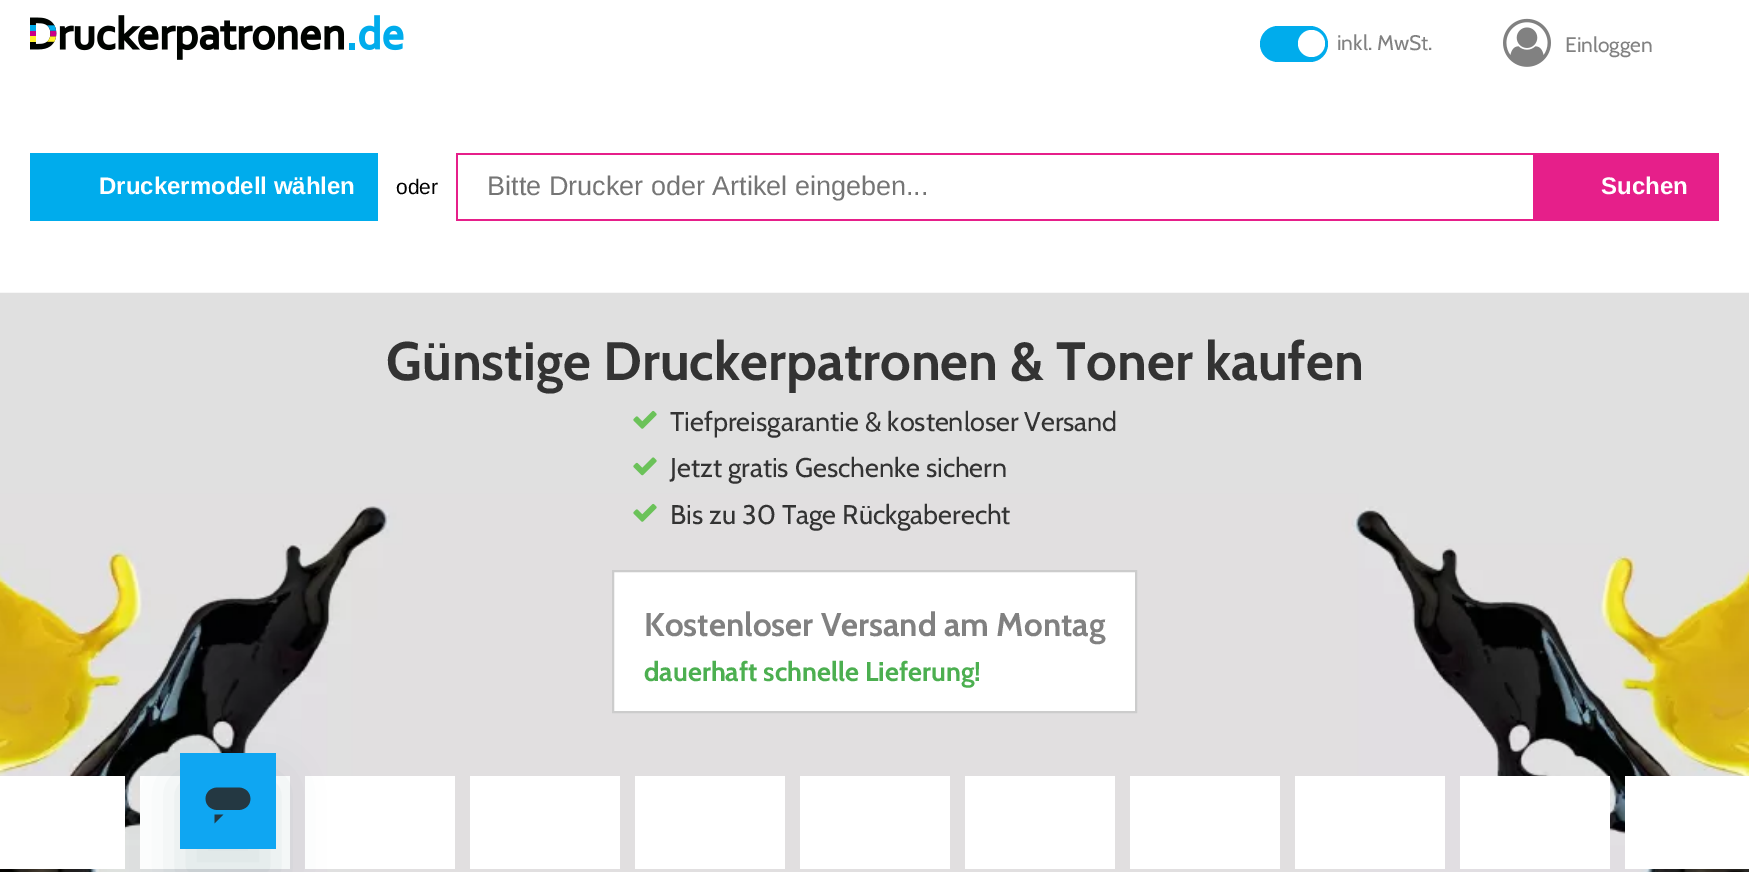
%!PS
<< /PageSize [1749 872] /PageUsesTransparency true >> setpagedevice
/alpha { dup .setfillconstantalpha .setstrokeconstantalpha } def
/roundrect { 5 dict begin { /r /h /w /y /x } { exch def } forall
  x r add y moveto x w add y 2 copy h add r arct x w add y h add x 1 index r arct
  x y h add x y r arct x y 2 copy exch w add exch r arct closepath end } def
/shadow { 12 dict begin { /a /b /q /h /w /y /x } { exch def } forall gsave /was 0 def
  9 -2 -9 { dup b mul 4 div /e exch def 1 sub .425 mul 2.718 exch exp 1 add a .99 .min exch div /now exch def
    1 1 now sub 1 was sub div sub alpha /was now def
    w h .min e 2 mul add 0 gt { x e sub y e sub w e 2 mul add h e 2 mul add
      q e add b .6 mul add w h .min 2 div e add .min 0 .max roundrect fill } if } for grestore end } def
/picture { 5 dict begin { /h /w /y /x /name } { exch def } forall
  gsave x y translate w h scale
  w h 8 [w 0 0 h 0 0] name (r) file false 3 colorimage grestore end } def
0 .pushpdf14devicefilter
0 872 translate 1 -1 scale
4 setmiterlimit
1 setgray
0 0 1749 872 rectfill
(img1.rgb) 30 15 374 45 picture
0 0.675 0.925 setrgbcolor
1260 26 68 36 18 roundrect fill
1 setgray
newpath 1311.5 43.5 13.5 0 360 arc closepath fill
/Cabin-Regular [21 0 0 -21 0 0] selectfont
0.506 setgray
1337 50 moveto (inkl. MwSt.) show
(img2.rgb) 1503 18 48 49 picture
1565 52 moveto (Einloggen) show
0 0.675 0.925 setrgbcolor
30 153 348 68 rectfill
/LiberationSans-Bold [24 0 0 -24 0 0] selectfont
1 setgray
99 194 moveto (Druckermodell wählen) show
/LiberationSans-Regular [21 0 0 -21 0 0] selectfont
0 setgray
396 194 moveto (oder) show
0.902 0.122 0.541 setrgbcolor
456 153 1077 2 rectfill
456 219 1077 2 rectfill
456 153 2 68 rectfill
/LiberationSans-Regular [27 0 0 -27 0 0] selectfont
0.459 setgray
487 195 moveto (Bitte Drucker oder Artikel eingeben...) show
0.902 0.122 0.541 setrgbcolor
1533 153 186 68 rectfill
/LiberationSans-Bold [24 0 0 -24 0 0] selectfont
1 setgray
1601 194 moveto (Suchen) show
(img3.rgb) 0 292 1749 580 picture
/Cabin-Bold [54 0 0 -54 0 0] selectfont
0.2 setgray
386 380 moveto (Günstige Druckerpatronen & Toner kaufen) show
(img4.rgb) 633 410 24 19 picture
/Cabin-Regular [27 0 0 -27 0 0] selectfont
670 431 moveto (Tiefpreisgarantie & kostenloser Versand) show
(img5.rgb) 633 457 24 19 picture
670 477 moveto (Jetzt gratis Geschenke sichern) show
(img6.rgb) 633 503 24 19 picture
670 524 moveto (Bis zu 30 Tage Rückgaberecht) show
1 setgray
newpath 613 571 moveto 1136 571 lineto 1136 712 lineto 613 712 lineto closepath gsave fill grestore
0.8 setgray
2 setlinewidth
stroke
/Cabin-Bold [33 0 0 -33 0 0] selectfont
0.506 setgray
644 636 moveto (Kostenloser Versand am Montag) show
/Cabin-Bold [27 0 0 -27 0 0] selectfont
0.298 0.686 0.314 setrgbcolor
644 681 moveto (dauerhaft schnelle Lieferung!) show
1 setgray
0 776 125 93 rectfill
140 776 150 93 rectfill
305 776 150 93 rectfill
470 776 150 93 rectfill
635 776 150 93 rectfill
800 776 150 93 rectfill
965 776 150 93 rectfill
1130 776 150 93 rectfill
1295 776 150 93 rectfill
1460 776 150 93 rectfill
1625 776 124 93 rectfill
0.09 0.286 0.302 setrgbcolor
180 783 96 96 0 22.5 0.15 shadow
(img7.rgb) 180 753 96 96 picture
.poppdf14devicefilter showpage
